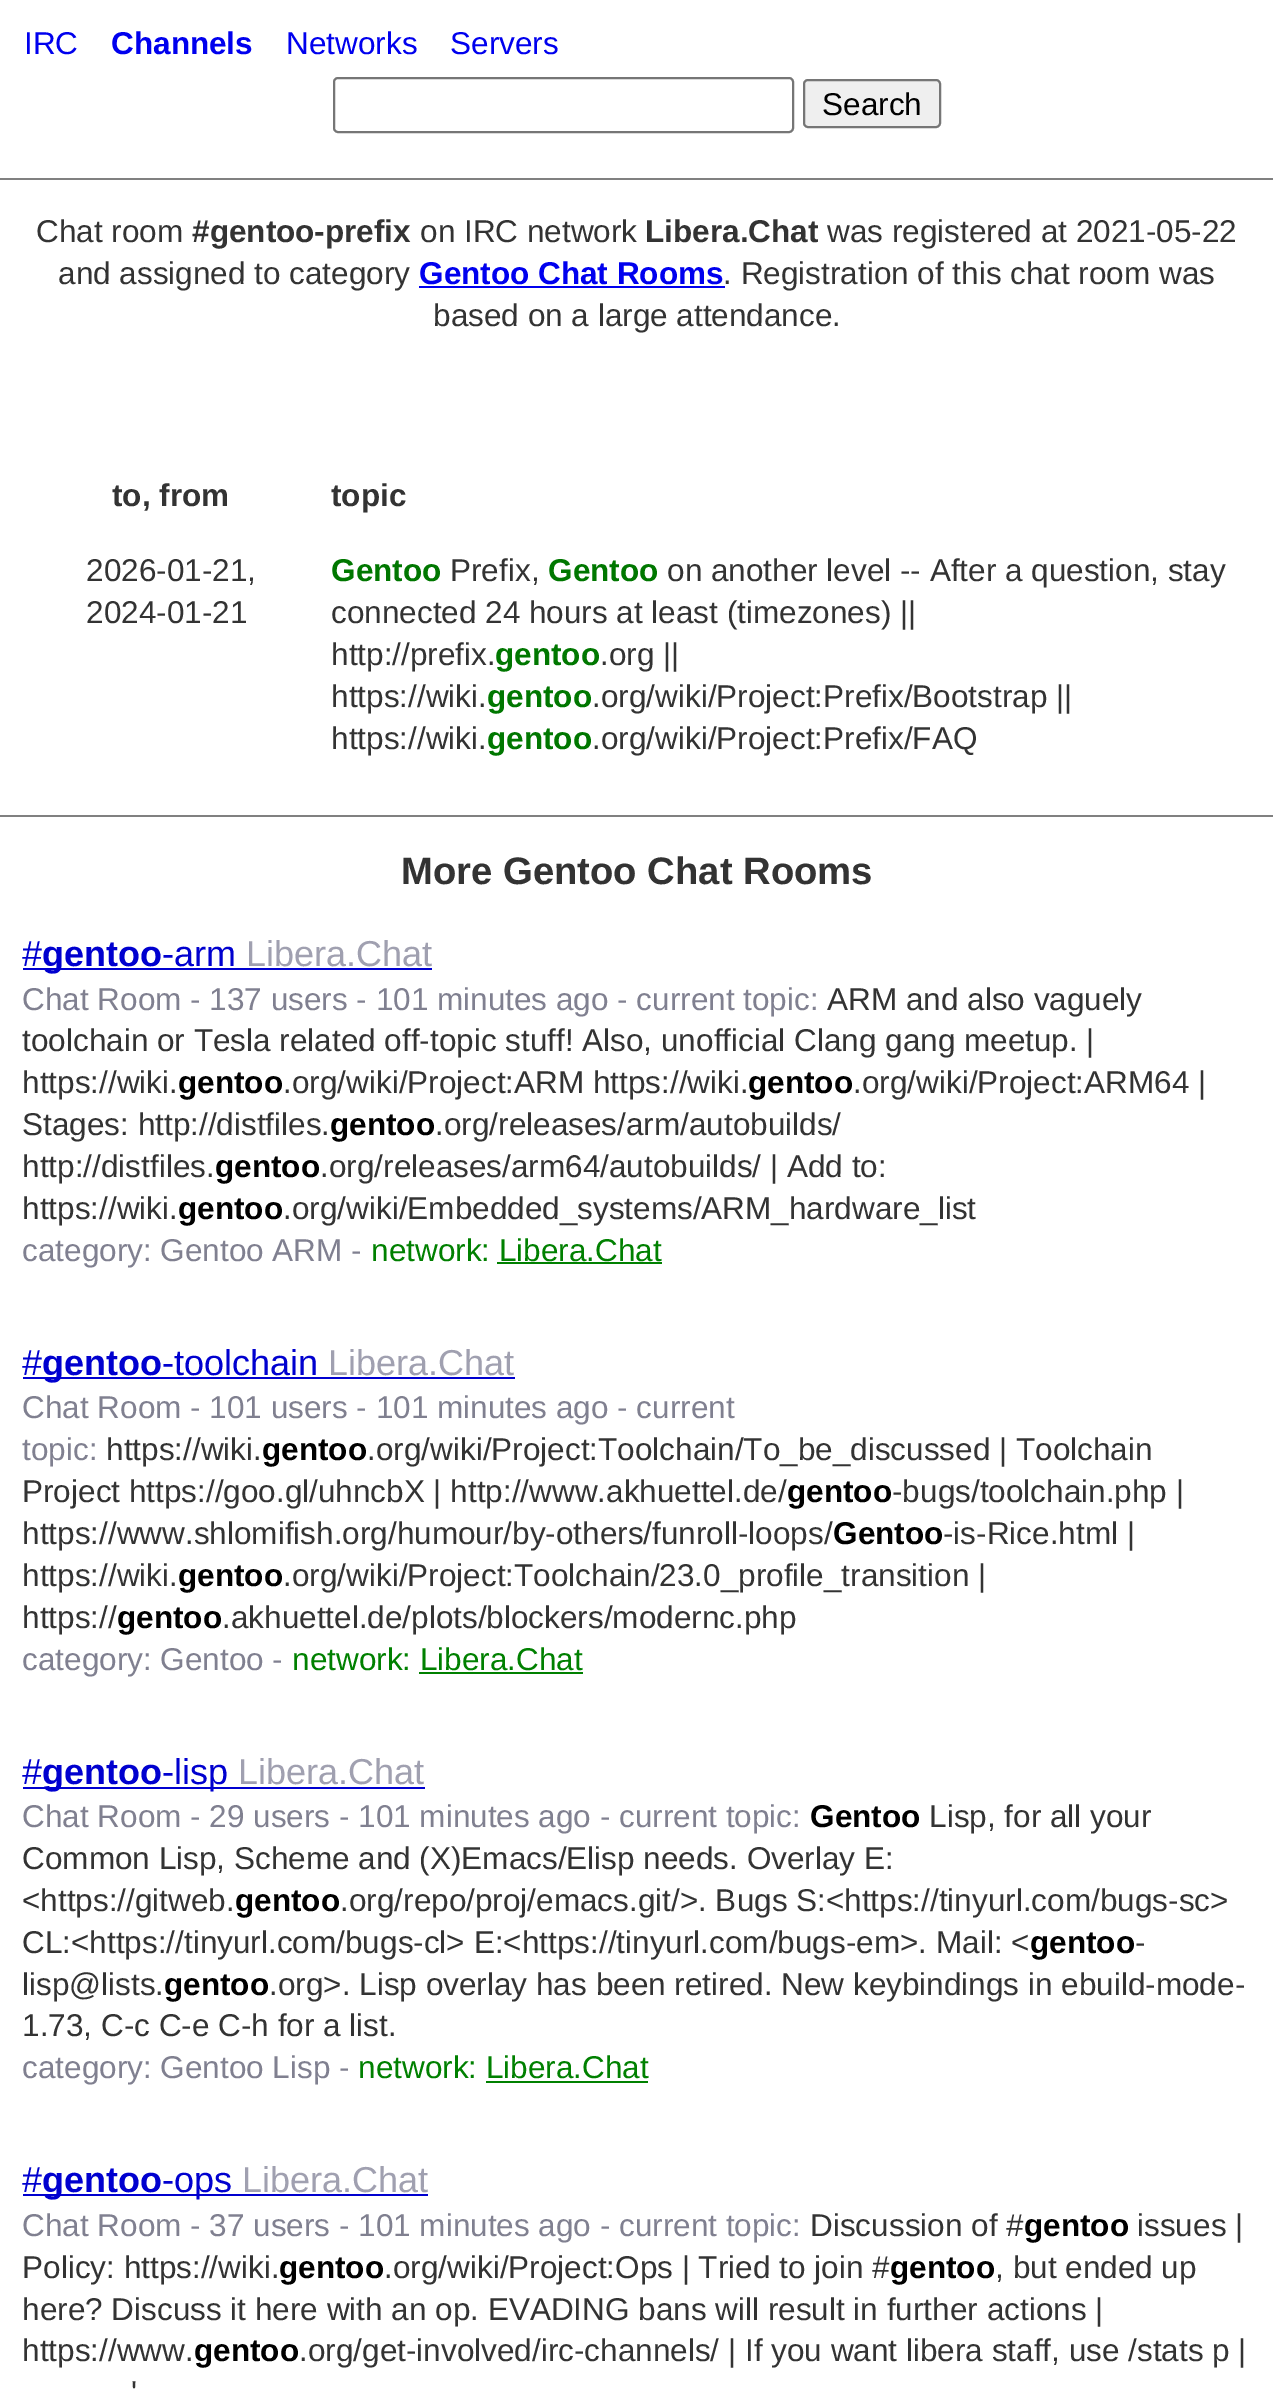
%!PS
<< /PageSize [1273 2390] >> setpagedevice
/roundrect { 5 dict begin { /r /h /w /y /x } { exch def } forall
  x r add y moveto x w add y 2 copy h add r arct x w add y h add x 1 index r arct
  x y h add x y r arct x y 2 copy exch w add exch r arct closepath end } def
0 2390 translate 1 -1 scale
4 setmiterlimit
1 setgray
0 0 1273 2390 rectfill
/LiberationSans-Regular [31.5 0 0 -31.5 0 0] selectfont
0 0 0.933 setrgbcolor
24 54 moveto (IRC) show
/LiberationSans-Bold [31.5 0 0 -31.5 0 0] selectfont
111 54 moveto (Channels) show
/LiberationSans-Regular [31.5 0 0 -31.5 0 0] selectfont
286 54 moveto (Networks) show
450 54 moveto (Servers) show
0.463 setgray
2 setlinewidth
334 78 459 54 4 roundrect stroke
0.937 setgray
804 80 136 47 4 roundrect gsave fill grestore
0.463 setgray
stroke
0 setgray
822 115 moveto (Search) show
0.502 setgray
0 178 1273 2 rectfill
0.2 setgray
36 242 moveto (Chat room) show
/LiberationSans-Bold [31.5 0 0 -31.5 0 0] selectfont
192 242 moveto (#gentoo-prefix) show
/LiberationSans-Regular [31.5 0 0 -31.5 0 0] selectfont
420 242 moveto (on IRC network) show
/LiberationSans-Bold [31.5 0 0 -31.5 0 0] selectfont
645 242 moveto (Libera.Chat) show
/LiberationSans-Regular [31.5 0 0 -31.5 0 0] selectfont
827 242 moveto (was registered at 2021-05-22) show
58 284 moveto (and assigned to category) show
/LiberationSans-Bold [31.5 0 0 -31.5 0 0] selectfont
0 0 0.933 setrgbcolor
419 284 moveto (Gentoo Chat Rooms) show
419 286 306 2 rectfill
/LiberationSans-Regular [31.5 0 0 -31.5 0 0] selectfont
0.2 setgray
723 284 moveto (. Registration of this chat room was) show
433 326 moveto (based on a large attendance.) show
/LiberationSans-Bold [31.5 0 0 -31.5 0 0] selectfont
112 506 moveto (to, from) show
331 506 moveto (topic) show
/LiberationSans-Regular [31.5 0 0 -31.5 0 0] selectfont
86 581 moveto (2026-01-21,) show
86 623 moveto (2024-01-21) show
/LiberationSans-Bold [31.5 0 0 -31.5 0 0] selectfont
0 0.467 0 setrgbcolor
331 581 moveto (Gentoo) show
/LiberationSans-Regular [31.5 0 0 -31.5 0 0] selectfont
0.2 setgray
450 581 moveto (Prefix,) show
/LiberationSans-Bold [31.5 0 0 -31.5 0 0] selectfont
0 0.467 0 setrgbcolor
548 581 moveto (Gentoo) show
/LiberationSans-Regular [31.5 0 0 -31.5 0 0] selectfont
0.2 setgray
667 581 moveto (on another level -- After a question, stay) show
331 623 moveto (connected 24 hours at least \(timezones\) ||) show
331 665 moveto (http://prefix.) show
/LiberationSans-Bold [31.5 0 0 -31.5 0 0] selectfont
0 0.467 0 setrgbcolor
495 665 moveto (gentoo) show
/LiberationSans-Regular [31.5 0 0 -31.5 0 0] selectfont
0.2 setgray
600 665 moveto (.org ||) show
331 707 moveto (https://wiki.) show
/LiberationSans-Bold [31.5 0 0 -31.5 0 0] selectfont
0 0.467 0 setrgbcolor
487 707 moveto (gentoo) show
/LiberationSans-Regular [31.5 0 0 -31.5 0 0] selectfont
0.2 setgray
592 707 moveto (.org/wiki/Project:Prefix/Bootstrap ||) show
331 749 moveto (https://wiki.) show
/LiberationSans-Bold [31.5 0 0 -31.5 0 0] selectfont
0 0.467 0 setrgbcolor
487 749 moveto (gentoo) show
/LiberationSans-Regular [31.5 0 0 -31.5 0 0] selectfont
0.2 setgray
592 749 moveto (.org/wiki/Project:Prefix/FAQ) show
0.502 setgray
0 815 1273 2 rectfill
/LiberationSans-Bold [38.25 0 0 -38.25 0 0] selectfont
0.2 setgray
401 884 moveto (More Gentoo Chat Rooms) show
/LiberationSans-Regular [36 0 0 -36 0 0] selectfont
0 0 0.812 setrgbcolor
22 966 moveto (#) show
23 968 409 2 rectfill
/LiberationSans-Bold [36 0 0 -36 0 0] selectfont
42 966 moveto (gentoo) show
/LiberationSans-Regular [36 0 0 -36 0 0] selectfont
162 966 moveto (-arm) show
0.627 0.627 0.69 setrgbcolor
246 966 moveto (Libera.Chat) show
/LiberationSans-Regular [31.5 0 0 -31.5 0 0] selectfont
0.502 0.502 0.565 setrgbcolor
22 1010 moveto (Chat Room - 137 users - 101 minutes ago - current topic:) show
0.2 setgray
827 1010 moveto (ARM and also vaguely) show
22 1051 moveto (toolchain or Tesla related off-topic stuff! Also, unofficial Clang gang meetup. |) show
22 1093 moveto (https://wiki.) show
/LiberationSans-Bold [31.5 0 0 -31.5 0 0] selectfont
0 setgray
178 1093 moveto (gentoo) show
/LiberationSans-Regular [31.5 0 0 -31.5 0 0] selectfont
0.2 setgray
283 1093 moveto (.org/wiki/Project:ARM https://wiki.) show
/LiberationSans-Bold [31.5 0 0 -31.5 0 0] selectfont
0 setgray
748 1093 moveto (gentoo) show
/LiberationSans-Regular [31.5 0 0 -31.5 0 0] selectfont
0.2 setgray
853 1093 moveto (.org/wiki/Project:ARM64 |) show
22 1135 moveto (Stages: http://distfiles.) show
/LiberationSans-Bold [31.5 0 0 -31.5 0 0] selectfont
0 setgray
330 1135 moveto (gentoo) show
/LiberationSans-Regular [31.5 0 0 -31.5 0 0] selectfont
0.2 setgray
435 1135 moveto (.org/releases/arm/autobuilds/) show
22 1177 moveto (http://distfiles.) show
/LiberationSans-Bold [31.5 0 0 -31.5 0 0] selectfont
0 setgray
215 1177 moveto (gentoo) show
/LiberationSans-Regular [31.5 0 0 -31.5 0 0] selectfont
0.2 setgray
320 1177 moveto (.org/releases/arm64/autobuilds/ | Add to:) show
22 1219 moveto (https://wiki.) show
/LiberationSans-Bold [31.5 0 0 -31.5 0 0] selectfont
0 setgray
178 1219 moveto (gentoo) show
/LiberationSans-Regular [31.5 0 0 -31.5 0 0] selectfont
0.2 setgray
283 1219 moveto (.org/wiki/Embedded_systems/ARM_hardware_list) show
0.502 0.502 0.565 setrgbcolor
22 1261 moveto (category: Gentoo ARM -) show
0 0.502 0 setrgbcolor
371 1261 moveto (network: Libera.Chat) show
497 1262 165 2 rectfill
/LiberationSans-Regular [36 0 0 -36 0 0] selectfont
0 0 0.812 setrgbcolor
22 1375 moveto (#) show
23 1377 492 2 rectfill
/LiberationSans-Bold [36 0 0 -36 0 0] selectfont
42 1375 moveto (gentoo) show
/LiberationSans-Regular [36 0 0 -36 0 0] selectfont
162 1375 moveto (-toolchain) show
0.627 0.627 0.69 setrgbcolor
328 1375 moveto (Libera.Chat) show
/LiberationSans-Regular [31.5 0 0 -31.5 0 0] selectfont
0.502 0.502 0.565 setrgbcolor
22 1418 moveto (Chat Room - 101 users - 101 minutes ago - current) show
22 1460 moveto (topic:) show
0.2 setgray
106 1460 moveto (https://wiki.) show
/LiberationSans-Bold [31.5 0 0 -31.5 0 0] selectfont
0 setgray
262 1460 moveto (gentoo) show
/LiberationSans-Regular [31.5 0 0 -31.5 0 0] selectfont
0.2 setgray
367 1460 moveto (.org/wiki/Project:Toolchain/To_be_discussed | Toolchain) show
22 1502 moveto (Project https://goo.gl/uhncbX | http://www.akhuettel.de/) show
/LiberationSans-Bold [31.5 0 0 -31.5 0 0] selectfont
0 setgray
787 1502 moveto (gentoo) show
/LiberationSans-Regular [31.5 0 0 -31.5 0 0] selectfont
0.2 setgray
892 1502 moveto (-bugs/toolchain.php |) show
22 1544 moveto (https://www.shlomifish.org/humour/by-others/funroll-loops/) show
/LiberationSans-Bold [31.5 0 0 -31.5 0 0] selectfont
0 setgray
833 1544 moveto (Gentoo) show
/LiberationSans-Regular [31.5 0 0 -31.5 0 0] selectfont
0.2 setgray
943 1544 moveto (-is-Rice.html |) show
22 1586 moveto (https://wiki.) show
/LiberationSans-Bold [31.5 0 0 -31.5 0 0] selectfont
0 setgray
178 1586 moveto (gentoo) show
/LiberationSans-Regular [31.5 0 0 -31.5 0 0] selectfont
0.2 setgray
283 1586 moveto (.org/wiki/Project:Toolchain/23.0_profile_transition |) show
22 1628 moveto (https://) show
/LiberationSans-Bold [31.5 0 0 -31.5 0 0] selectfont
0 setgray
117 1628 moveto (gentoo) show
/LiberationSans-Regular [31.5 0 0 -31.5 0 0] selectfont
0.2 setgray
222 1628 moveto (.akhuettel.de/plots/blockers/modernc.php) show
0.502 0.502 0.565 setrgbcolor
22 1670 moveto (category: Gentoo -) show
0 0.502 0 setrgbcolor
292 1670 moveto (network: Libera.Chat) show
419 1672 164 2 rectfill
/LiberationSans-Regular [36 0 0 -36 0 0] selectfont
0 0 0.812 setrgbcolor
22 1784 moveto (#) show
23 1787 402 2 rectfill
/LiberationSans-Bold [36 0 0 -36 0 0] selectfont
42 1784 moveto (gentoo) show
/LiberationSans-Regular [36 0 0 -36 0 0] selectfont
162 1784 moveto (-lisp) show
0.627 0.627 0.69 setrgbcolor
238 1784 moveto (Libera.Chat) show
/LiberationSans-Regular [31.5 0 0 -31.5 0 0] selectfont
0.502 0.502 0.565 setrgbcolor
22 1827 moveto (Chat Room - 29 users - 101 minutes ago - current topic:) show
/LiberationSans-Bold [31.5 0 0 -31.5 0 0] selectfont
0 setgray
810 1827 moveto (Gentoo) show
/LiberationSans-Regular [31.5 0 0 -31.5 0 0] selectfont
0.2 setgray
929 1827 moveto (Lisp, for all your) show
22 1869 moveto (Common Lisp, Scheme and \(X\)Emacs/Elisp needs. Overlay E:) show
22 1911 moveto (<https://gitweb.) show
/LiberationSans-Bold [31.5 0 0 -31.5 0 0] selectfont
0 setgray
235 1911 moveto (gentoo) show
/LiberationSans-Regular [31.5 0 0 -31.5 0 0] selectfont
0.2 setgray
340 1911 moveto (.org/repo/proj/emacs.git/>. Bugs S:<https://tinyurl.com/bugs-sc>) show
22 1953 moveto (CL:<https://tinyurl.com/bugs-cl> E:<https://tinyurl.com/bugs-em>. Mail: <) show
/LiberationSans-Bold [31.5 0 0 -31.5 0 0] selectfont
0 setgray
1030 1953 moveto (gentoo) show
/LiberationSans-Regular [31.5 0 0 -31.5 0 0] selectfont
0.2 setgray
1135 1953 moveto (-) show
22 1995 moveto (lisp@lists.) show
/LiberationSans-Bold [31.5 0 0 -31.5 0 0] selectfont
0 setgray
164 1995 moveto (gentoo) show
/LiberationSans-Regular [31.5 0 0 -31.5 0 0] selectfont
0.2 setgray
269 1995 moveto (.org>. Lisp overlay has been retired. New keybindings in ebuild-mode-) show
22 2036 moveto (1.73, C-c C-e C-h for a list.) show
0.502 0.502 0.565 setrgbcolor
22 2078 moveto (category: Gentoo Lisp -) show
0 0.502 0 setrgbcolor
358 2078 moveto (network: Libera.Chat) show
486 2081 162 2 rectfill
/LiberationSans-Regular [36 0 0 -36 0 0] selectfont
0 0 0.812 setrgbcolor
22 2192 moveto (#) show
23 2194 405 2 rectfill
/LiberationSans-Bold [36 0 0 -36 0 0] selectfont
42 2192 moveto (gentoo) show
/LiberationSans-Regular [36 0 0 -36 0 0] selectfont
162 2192 moveto (-ops) show
0.627 0.627 0.69 setrgbcolor
242 2192 moveto (Libera.Chat) show
/LiberationSans-Regular [31.5 0 0 -31.5 0 0] selectfont
0.502 0.502 0.565 setrgbcolor
22 2236 moveto (Chat Room - 37 users - 101 minutes ago - current topic:) show
0.2 setgray
810 2236 moveto (Discussion of #) show
/LiberationSans-Bold [31.5 0 0 -31.5 0 0] selectfont
0 setgray
1024 2236 moveto (gentoo) show
/LiberationSans-Regular [31.5 0 0 -31.5 0 0] selectfont
0.2 setgray
1137 2236 moveto (issues |) show
22 2278 moveto (Policy: https://wiki.) show
/LiberationSans-Bold [31.5 0 0 -31.5 0 0] selectfont
0 setgray
279 2278 moveto (gentoo) show
/LiberationSans-Regular [31.5 0 0 -31.5 0 0] selectfont
0.2 setgray
384 2278 moveto (.org/wiki/Project:Ops | Tried to join #) show
/LiberationSans-Bold [31.5 0 0 -31.5 0 0] selectfont
0 setgray
890 2278 moveto (gentoo) show
/LiberationSans-Regular [31.5 0 0 -31.5 0 0] selectfont
0.2 setgray
995 2278 moveto (, but ended up) show
22 2320 moveto (here? Discuss it here with an op. EVADING bans will result in further actions |) show
22 2361 moveto (https://www.) show
/LiberationSans-Bold [31.5 0 0 -31.5 0 0] selectfont
0 setgray
194 2361 moveto (gentoo) show
/LiberationSans-Regular [31.5 0 0 -31.5 0 0] selectfont
0.2 setgray
299 2361 moveto (.org/get-involved/irc-channels/ | If you want libera staff, use /stats p |) show
131 2403 moveto (') show
showpage
